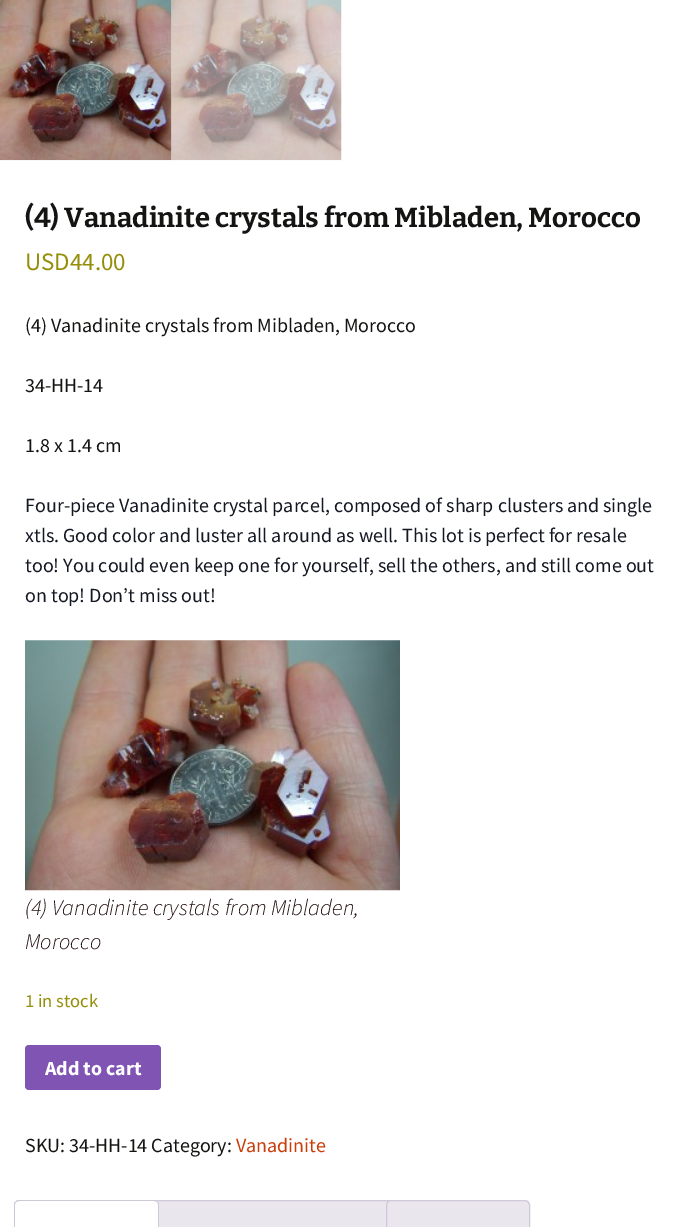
%!PS
<< /PageSize [682 1227] >> setpagedevice
/roundrect { 5 dict begin { /r /h /w /y /x } { exch def } forall
  x r add y moveto x w add y 2 copy h add r arct x w add y h add x 1 index r arct
  x y h add x y r arct x y 2 copy exch w add exch r arct closepath end } def
/picture { 5 dict begin { /h /w /y /x /name } { exch def } forall
  gsave x y translate w h scale
  w h 8 [w 0 0 h 0 0] name (r) file false 3 colorimage grestore end } def
0 1227 translate 1 -1 scale
4 setmiterlimit
1 setgray
0 0 682 1227 rectfill
(img1.rgb) 0 0 172 161 picture
(img2.rgb) 171 0 171 161 picture
/Bitter-Thin [27.5 0 0 -27.5 0 0] selectfont
0.078 0.078 0.071 setrgbcolor
25 227 moveto (\(4\) Vanadinite crystals from Mibladen, Morocco) show
/SourceSansPro-Regular [25 0 0 -25 0 0] selectfont
0.584 0.557 0.035 setrgbcolor
25 270 moveto (USD44.00) show
/SourceSansPro-Regular [20 0 0 -20 0 0] selectfont
0.078 0.078 0.071 setrgbcolor
25 332 moveto (\(4\) Vanadinite crystals from Mibladen, Morocco) show
25 392 moveto (34-HH-14) show
25 452 moveto (1.8 x 1.4 cm) show
0.078 0.094 0.137 setrgbcolor
25 512 moveto (Four-piece Vanadinite crystal parcel, composed of sharp clusters and single) show
25 542 moveto (xtls. Good color and luster all around as well. This lot is perfect for resale) show
25 572 moveto (too! You could even keep one for yourself, sell the others, and still come out) show
25 602 moveto (on top! Don’t miss out!) show
(img3.rgb) 25 640 375 251 picture
/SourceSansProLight-LightItalic [22.5 0 0 -22.5 0 0] selectfont
0.133 0.055 0.063 setrgbcolor
25 915 moveto (\(4\) Vanadinite crystals from Mibladen,) show
25 949 moveto (Morocco) show
/SourceSansPro-Regular [18.5 0 0 -18.5 0 0] selectfont
0.584 0.557 0.035 setrgbcolor
25 1007 moveto (1 in stock) show
0.498 0.329 0.702 setrgbcolor
25 1045 136 45 4 roundrect fill
/SourceSansPro-Bold [20 0 0 -20 0 0] selectfont
1 setgray
45 1075 moveto (Add to cart) show
/SourceSansPro-Regular [20 0 0 -20 0 0] selectfont
0.078 0.078 0.071 setrgbcolor
25 1152 moveto (SKU: 34-HH-14 Category:) show
0.792 0.235 0.031 setrgbcolor
236 1152 moveto (Vanadinite) show
0.914 0.902 0.929 setrgbcolor
newpath 155 1200.5 moveto 389 1200.5 lineto 391.5 1200.5 393.5 1202.5 393.5 1205 curveto 393.5 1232.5 lineto 150.5 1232.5 lineto 150.5 1205 lineto 150.5 1202.5 152.5 1200.5 155 1200.5 curveto closepath gsave fill grestore
0.812 0.784 0.847 setrgbcolor
stroke
1 setgray
newpath 19 1200 moveto 154 1200 lineto 157 1200 159 1202 159 1205 curveto 159 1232 lineto 14 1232 lineto 14 1205 lineto 14 1202 16 1200 19 1200 curveto closepath fill
0.812 0.784 0.847 setrgbcolor
newpath 19 1200 moveto 17 1200 16 1201 15 1202 curveto 16 1202 lineto 19 1201 lineto 154 1201 lineto 157 1202 lineto 157 1201 lineto 157 1200 155 1200 154 1200 curveto closepath fill
newpath 159 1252 moveto 157 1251 lineto 158 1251 lineto 158 1204 lineto 157 1202 lineto 157 1201 lineto 159 1203 lineto closepath fill
newpath 15 1202 moveto 14 1202 14 1204 14 1205 curveto 14 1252 lineto 15 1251 lineto 15 1205 lineto 15 1204 15 1203 16 1202 curveto closepath fill
0.914 0.902 0.929 setrgbcolor
newpath 391 1200.5 moveto 525 1200.5 lineto 527.5 1200.5 529.5 1202.5 529.5 1205 curveto 529.5 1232.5 lineto 386.5 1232.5 lineto 386.5 1205 lineto 386.5 1202.5 388.5 1200.5 391 1200.5 curveto closepath gsave fill grestore
0.812 0.784 0.847 setrgbcolor
stroke
showpage
